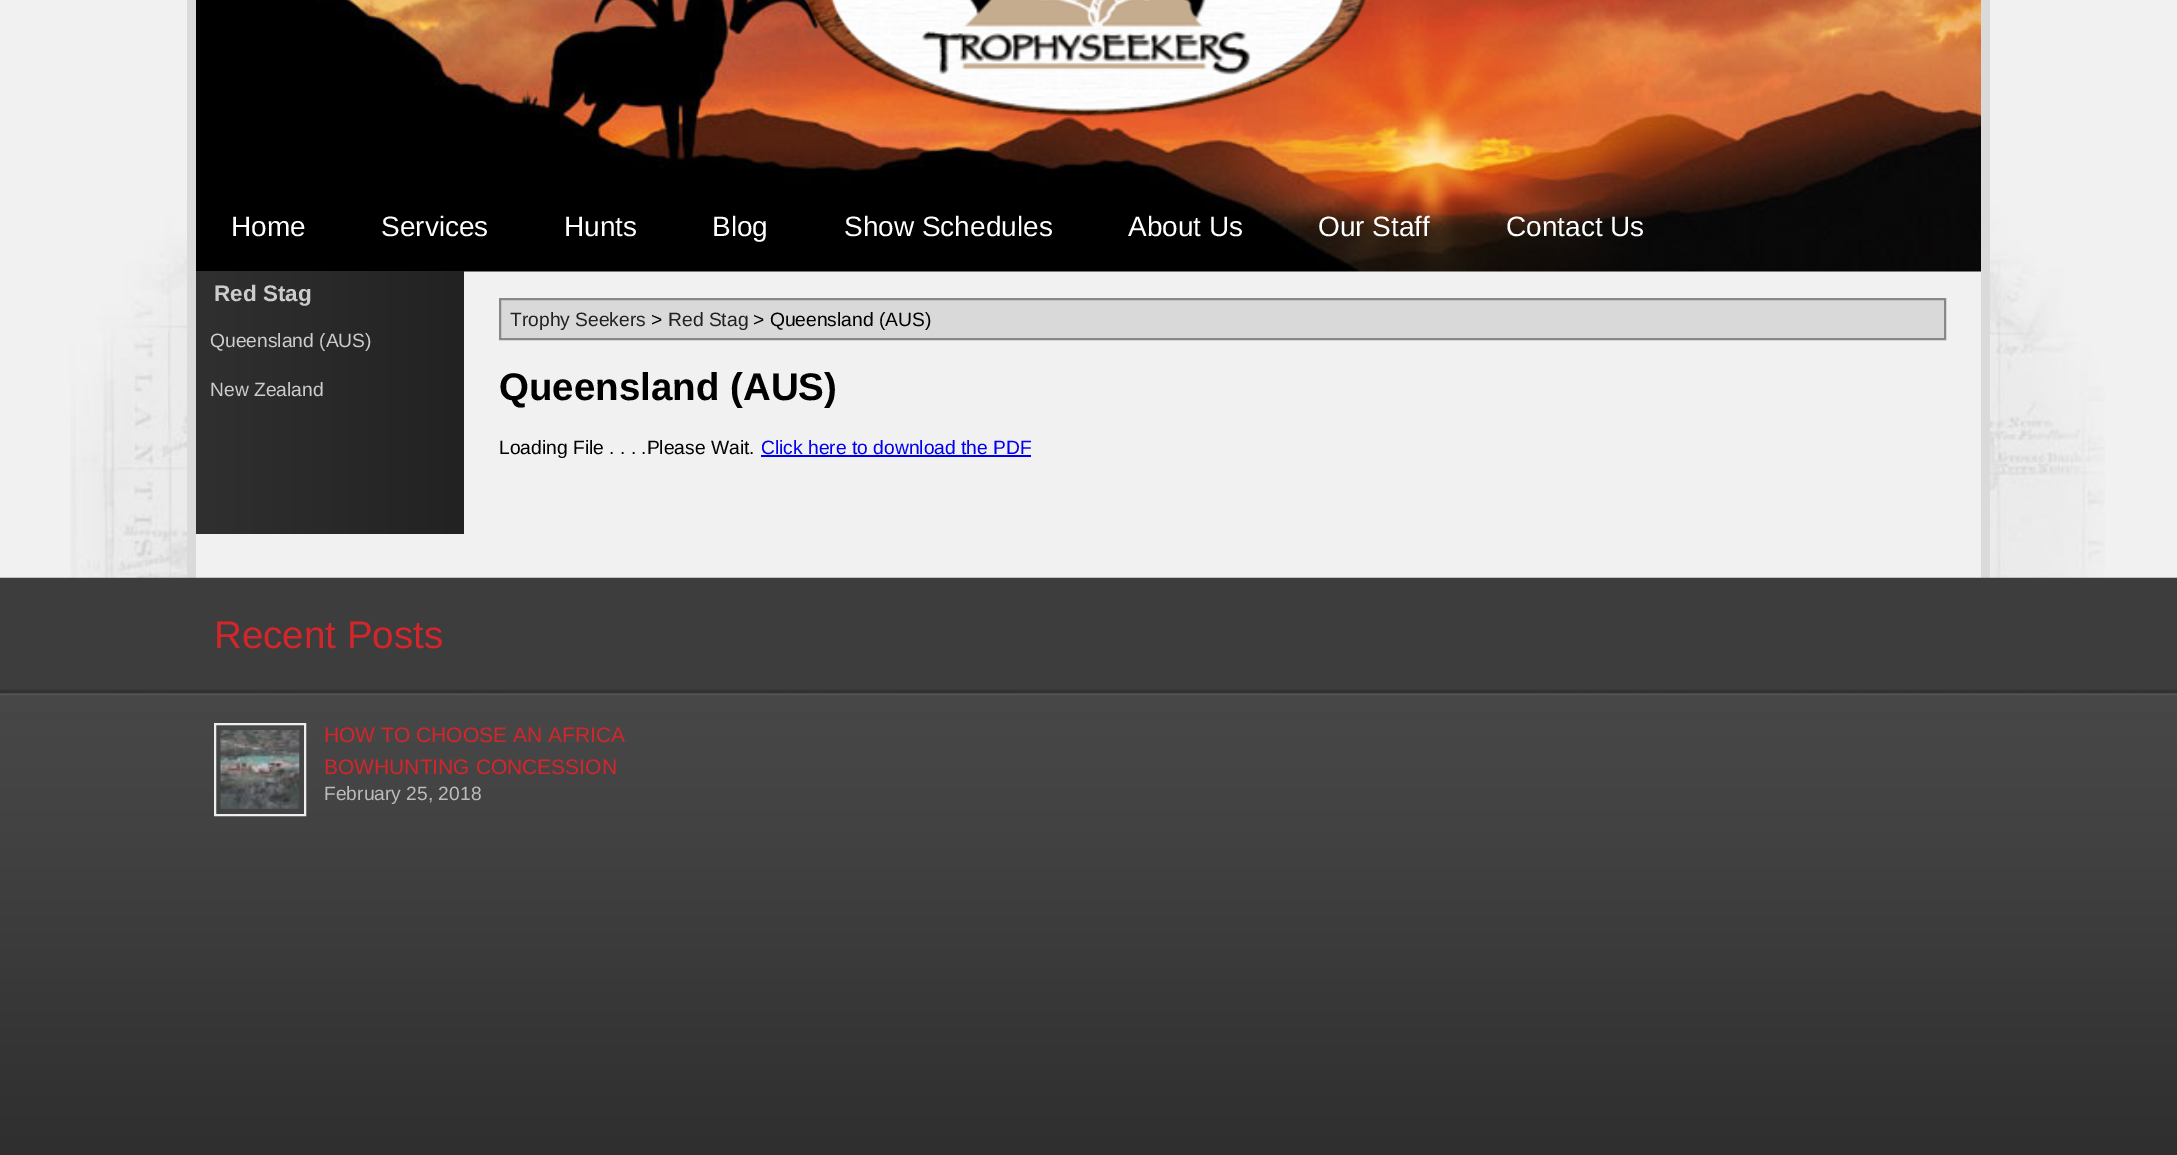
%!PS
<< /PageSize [2177 1155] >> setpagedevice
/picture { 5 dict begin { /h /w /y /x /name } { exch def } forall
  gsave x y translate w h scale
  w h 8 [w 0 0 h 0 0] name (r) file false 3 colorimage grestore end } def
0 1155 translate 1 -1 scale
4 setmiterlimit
0.945 setgray
0 0 2177 1155 rectfill
(img1.rgb) 70 0 2035 578 picture
196 271 1785 307 rectfill
0.855 setgray
1981 0 9 578 rectfill
187 0 9 578 rectfill
(img2.rgb) 196 0 1785 272 picture
(img3.rgb) 806 0 560 117 picture
/LiberationSans-Regular [28 0 0 -28 0 0] selectfont
1 setgray
231 236 moveto (Home) show
381 236 moveto (Services) show
564 236 moveto (Hunts) show
712 236 moveto (Blog) show
844 236 moveto (Show Schedules) show
1128 236 moveto (About Us) show
1318 236 moveto (Our Staff) show
1506 236 moveto (Contact Us) show
gsave newpath 196 271 moveto 464 271 lineto 464 534 lineto 196 534 lineto closepath clip newpath
<< /ShadingType 2 /ColorSpace /DeviceRGB /Coords [196 403 464 403] /Extend [true true] /Function << /FunctionType 2 /Domain [0 1] /C0 [0.188 0.188 0.188] /C1 [0.133 0.133 0.133] /N 1 >> >> shfill grestore
/LiberationSans-Bold [22.5 0 0 -22.5 0 0] selectfont
0.8 setgray
214 301 moveto (Red Stag) show
/LiberationSans-Regular [19.25 0 0 -19.25 0 0] selectfont
210 347 moveto (Queensland \(AUS\)) show
210 396 moveto (New Zealand) show
0.851 setgray
newpath 500 299 moveto 1945 299 lineto 1945 339 lineto 500 339 lineto closepath gsave fill grestore
0.533 setgray
2 setlinewidth
stroke
0.133 setgray
510 326 moveto (Trophy Seekers) show
0 setgray
651 326 moveto (>) show
0.133 setgray
668 326 moveto (Red Stag) show
0 setgray
753 326 moveto (> Queensland \(AUS\)) show
/LiberationSans-Bold [38.5 0 0 -38.5 0 0] selectfont
499 400 moveto (Queensland \(AUS\)) show
/LiberationSans-Regular [19.25 0 0 -19.25 0 0] selectfont
499 454 moveto (Loading File . . . .Please Wait.) show
0 0 0.933 setrgbcolor
761 454 moveto (Click here to download the PDF) show
761 455 270 2 rectfill
(img4.rgb) 0 577 2177 578 picture
/LiberationSans-Regular [38.5 0 0 -38.5 0 0] selectfont
0.824 0.149 0.169 setrgbcolor
214 648 moveto (Recent Posts) show
0.933 setgray
215 724 90 91 rectstroke
(img5.rgb) 220 730 80 79 picture
/LiberationSans-Regular [21 0 0 -21 0 0] selectfont
0.824 0.149 0.169 setrgbcolor
324 742 moveto (HOW TO CHOOSE AN AFRICA) show
324 774 moveto (BOWHUNTING CONCESSION) show
/LiberationSans-Regular [19.25 0 0 -19.25 0 0] selectfont
0.733 setgray
324 800 moveto (February 25, 2018) show
showpage
